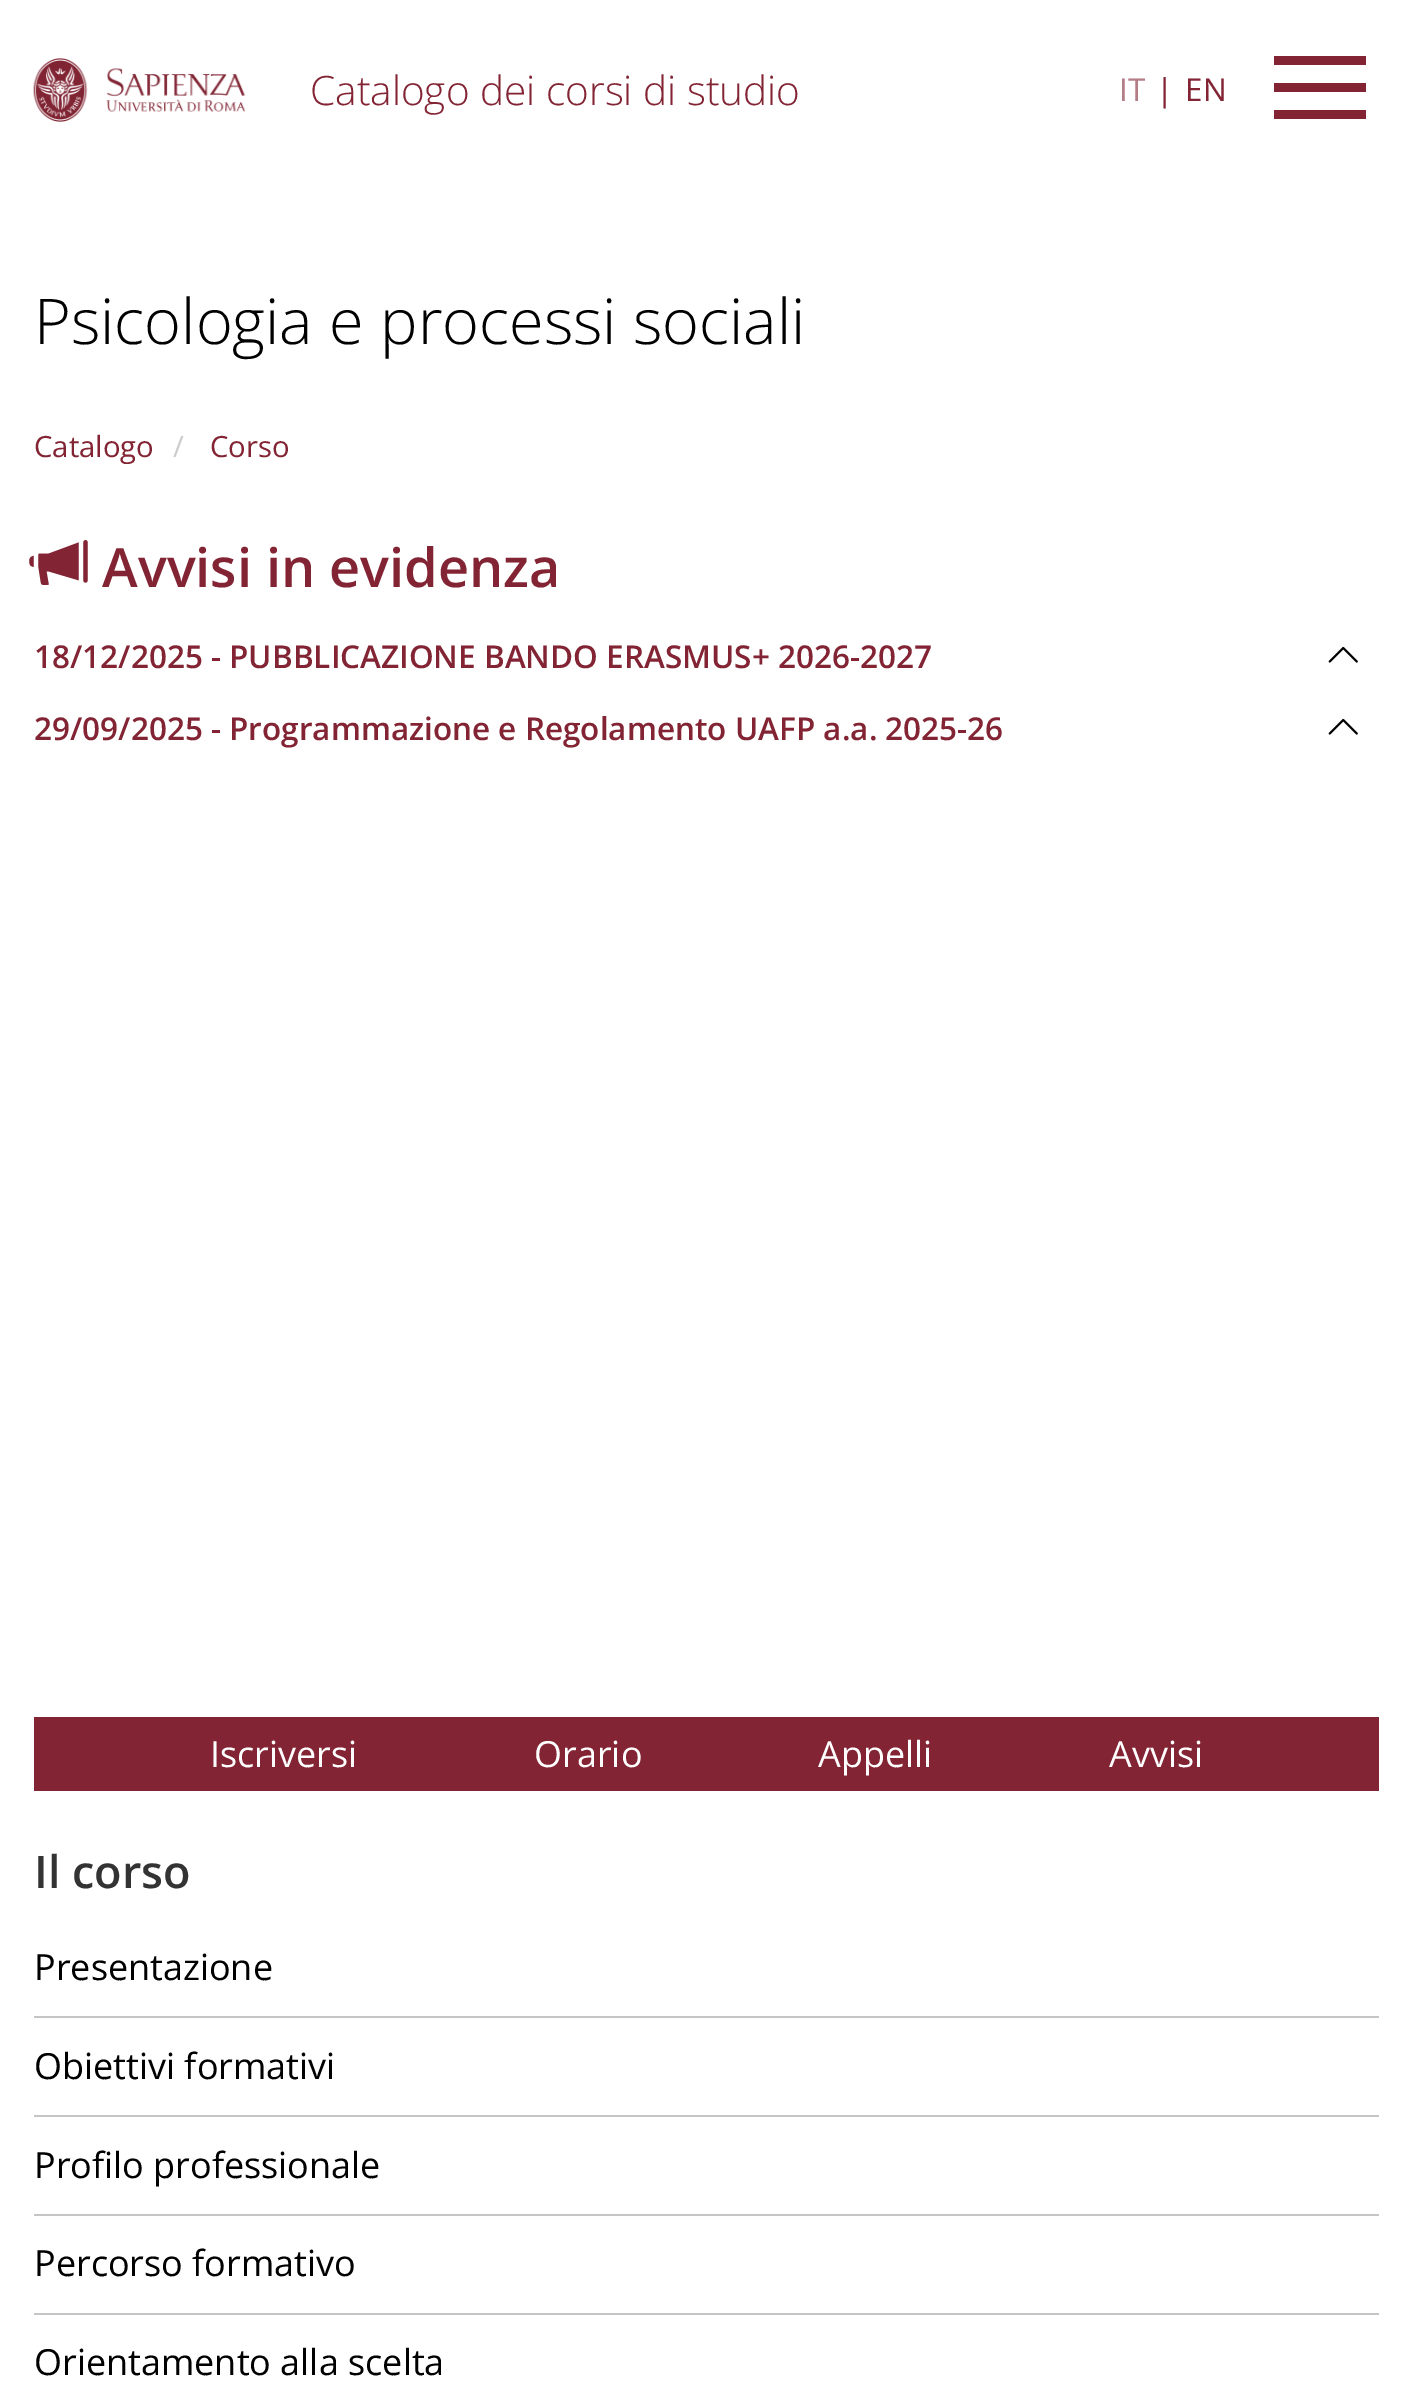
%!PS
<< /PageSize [1411 2384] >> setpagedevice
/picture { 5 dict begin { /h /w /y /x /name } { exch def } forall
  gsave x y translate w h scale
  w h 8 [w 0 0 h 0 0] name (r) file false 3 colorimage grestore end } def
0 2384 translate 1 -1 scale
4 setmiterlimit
1 setgray
0 0 1411 2384 rectfill
(img1.rgb) 33 58 213 64 picture
/OpenSans-Light [40.5 0 0 -40.5 0 0] selectfont
0.51 0.141 0.2 setrgbcolor
310 105 moveto (Catalogo dei corsi di studio) show
/OpenSans-Regular [31.5 0 0 -31.5 0 0] selectfont
0.706 0.486 0.522 setrgbcolor
1119 101 moveto (IT) show
0.51 0.141 0.2 setrgbcolor
1156 101 moveto (|) show
1185 101 moveto (EN) show
newpath 1274 56 moveto 1274 65 lineto 1366 65 lineto 1366 56 lineto closepath 1274 83 moveto 1274 92 lineto 1366 92 lineto 1366 83 lineto closepath 1274 110 moveto 1274 119 lineto 1366 119 lineto 1366 110 lineto closepath fill
/OpenSans-Light [63 0 0 -63 0 0] selectfont
0 setgray
34 344 moveto (Psicologia e processi sociali) show
/OpenSans-Regular [29.25 0 0 -29.25 0 0] selectfont
0.51 0.141 0.2 setrgbcolor
34 457 moveto (Catalogo) show
0.8 setgray
173 457 moveto (/) show
0.51 0.141 0.2 setrgbcolor
210 457 moveto (Corso) show
(img2.rgb) 29 540 59 45 picture
/OpenSans-SemiBold [54 0 0 -54 0 0] selectfont
102 587 moveto (Avvisi in evidenza) show
/OpenSans-SemiBold [31.5 0 0 -31.5 0 0] selectfont
34 668 moveto (18/12/2025 - PUBBLICAZIONE BANDO ERASMUS+ 2026-2027) show
(img3.rgb) 1328 646 30 17 picture
34 740 moveto (29/09/2025 - Programmazione e Regolamento UAFP a.a. 2025-26) show
(img3.rgb) 1328 718 30 17 picture
34 1717 1345 74 rectfill
/OpenSans-Regular [36 0 0 -36 0 0] selectfont
1 setgray
210 1767 moveto (Iscriversi) show
534 1767 moveto (Orario) show
818 1767 moveto (Appelli) show
1109 1767 moveto (Avvisi) show
/OpenSans-SemiBold [45 0 0 -45 0 0] selectfont
0.2 setgray
34 1888 moveto (Il corso) show
0.773 setgray
34 2016 1345 2 rectfill
/OpenSans-Regular [36 0 0 -36 0 0] selectfont
0 setgray
34 1980 moveto (Presentazione) show
0.773 setgray
34 2115 1345 2 rectfill
0 setgray
34 2079 moveto (Obiettivi formativi) show
0.773 setgray
34 2214 1345 2 rectfill
0 setgray
34 2178 moveto (Profilo professionale) show
0.773 setgray
34 2313 1345 2 rectfill
0 setgray
34 2276 moveto (Percorso formativo) show
34 2375 moveto (Orientamento alla scelta) show
showpage
